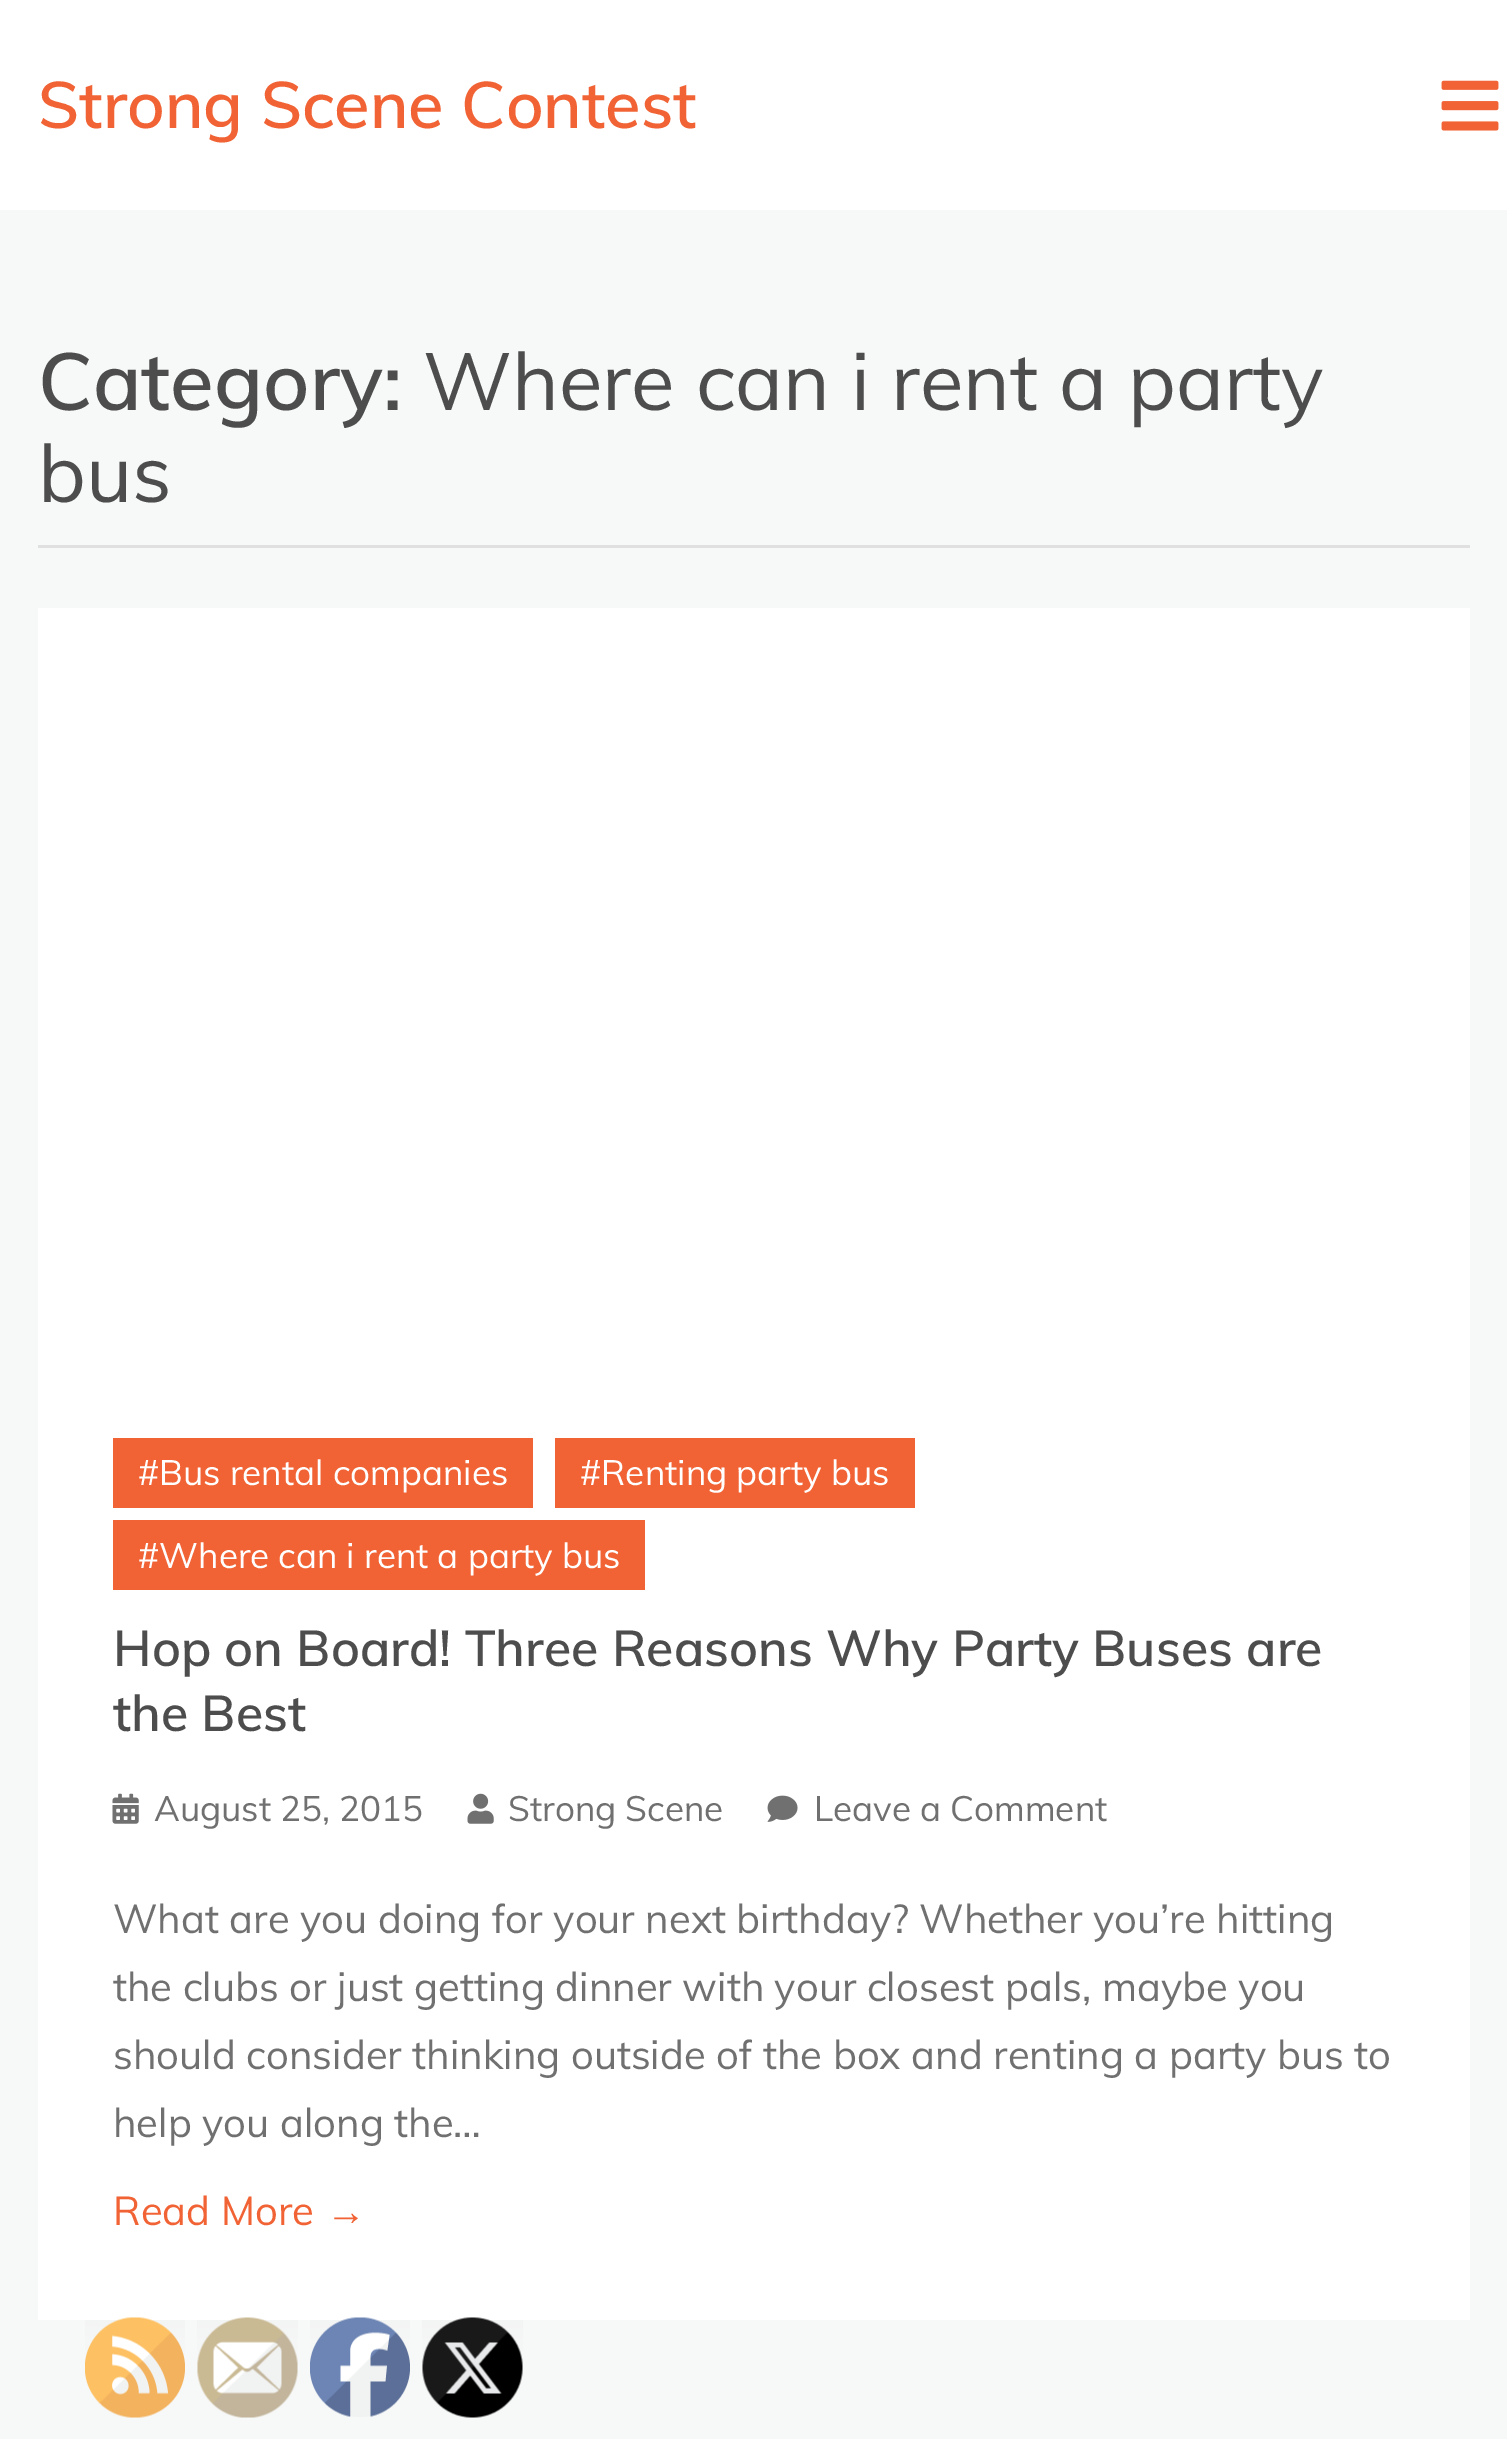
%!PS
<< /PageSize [1507 2439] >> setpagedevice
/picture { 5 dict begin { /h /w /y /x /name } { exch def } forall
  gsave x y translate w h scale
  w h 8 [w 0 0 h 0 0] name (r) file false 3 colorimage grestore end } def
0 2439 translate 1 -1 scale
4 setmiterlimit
0.969 0.973 0.973 setrgbcolor
0 0 1507 2439 rectfill
1 setgray
0 0 1507 210 rectfill
/Muli-SemiBold [65 0 0 -65 0 0] selectfont
0.945 0.388 0.204 setrgbcolor
38 128 moveto (Strong Scene Contest) show
(img1.rgb) 1441 80 58 51 picture
0.878 setgray
38 545 1432 3 rectfill
/Muli-SemiBold [80 0 0 -80 0 0] selectfont
0.302 setgray
38 410 moveto (Category:) show
/Muli-Regular [80 0 0 -80 0 0] selectfont
423 410 moveto (Where can i rent a party) show
38 502 moveto (bus) show
1 setgray
38 608 1432 1712 rectfill
0.945 0.388 0.204 setrgbcolor
113 1438 420 70 rectfill
/Muli-Regular [35 0 0 -35 0 0] selectfont
1 setgray
138 1485 moveto (#Bus rental companies) show
0.945 0.388 0.204 setrgbcolor
555 1438 360 70 rectfill
1 setgray
580 1485 moveto (#Renting party bus) show
0.945 0.388 0.204 setrgbcolor
113 1520 532 70 rectfill
1 setgray
138 1568 moveto (#Where can i rent a party bus) show
/Muli-SemiBold [50 0 0 -50 0 0] selectfont
0.302 setgray
113 1666 moveto (Hop on Board! Three Reasons Why Party Buses are) show
113 1731 moveto (the Best) show
(img2.rgb) 112 1793 27 31 picture
/Muli-Regular [35 0 0 -35 0 0] selectfont
0.439 setgray
154 1821 moveto (August 25, 2015) show
(img3.rgb) 467 1793 27 31 picture
508 1821 moveto (Strong Scene) show
(img4.rgb) 767 1795 31 27 picture
814 1821 moveto (Leave a Comment) show
/Muli-Regular [40 0 0 -40 0 0] selectfont
113 1933 moveto (What are you doing for your next birthday? Whether you’re hitting) show
113 2001 moveto (the clubs or just getting dinner with your closest pals, maybe you) show
113 2069 moveto (should consider thinking outside of the box and renting a party bus to) show
113 2137 moveto (help you along the…) show
0.945 0.388 0.204 setrgbcolor
113 2225 moveto (Read More) show
/LiberationSerif-Regular [40 0 0 -40 0 0] selectfont
326 2225 moveto (→) show
(img5.rgb) 85 2317 100 101 picture
(img6.rgb) 197 2317 101 101 picture
(img7.rgb) 310 2317 100 100 picture
(img8.rgb) 422 2317 101 101 picture
showpage
